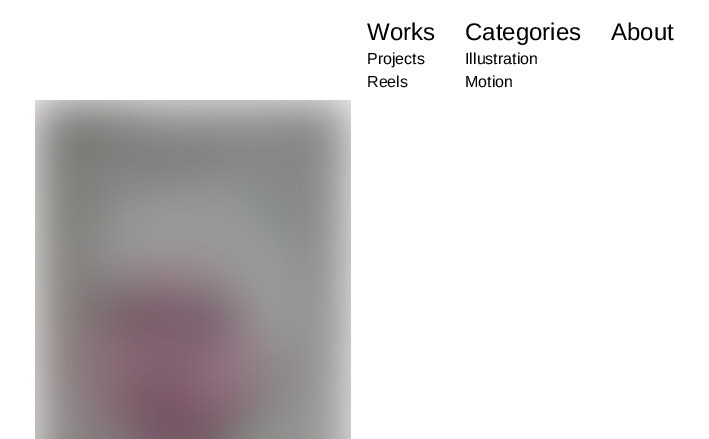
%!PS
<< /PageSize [709 439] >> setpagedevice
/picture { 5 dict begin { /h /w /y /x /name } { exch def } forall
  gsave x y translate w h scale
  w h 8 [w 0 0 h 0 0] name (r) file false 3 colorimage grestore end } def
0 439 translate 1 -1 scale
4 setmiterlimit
1 setgray
0 0 709 439 rectfill
/LiberationSans-Regular [24 0 0 -24 0 0] selectfont
0 setgray
367 40 moveto (Works) show
/LiberationSans-Regular [16 0 0 -16 0 0] selectfont
367 64 moveto (Projects) show
0.039 setgray
367 87 moveto (Reels) show
/LiberationSans-Regular [24 0 0 -24 0 0] selectfont
0 setgray
465 40 moveto (Categories) show
/LiberationSans-Regular [16 0 0 -16 0 0] selectfont
465 64 moveto (Illustration) show
465 87 moveto (Motion) show
/LiberationSans-Regular [24 0 0 -24 0 0] selectfont
611 40 moveto (About) show
(img1.rgb) 35 100 316 339 picture
showpage
